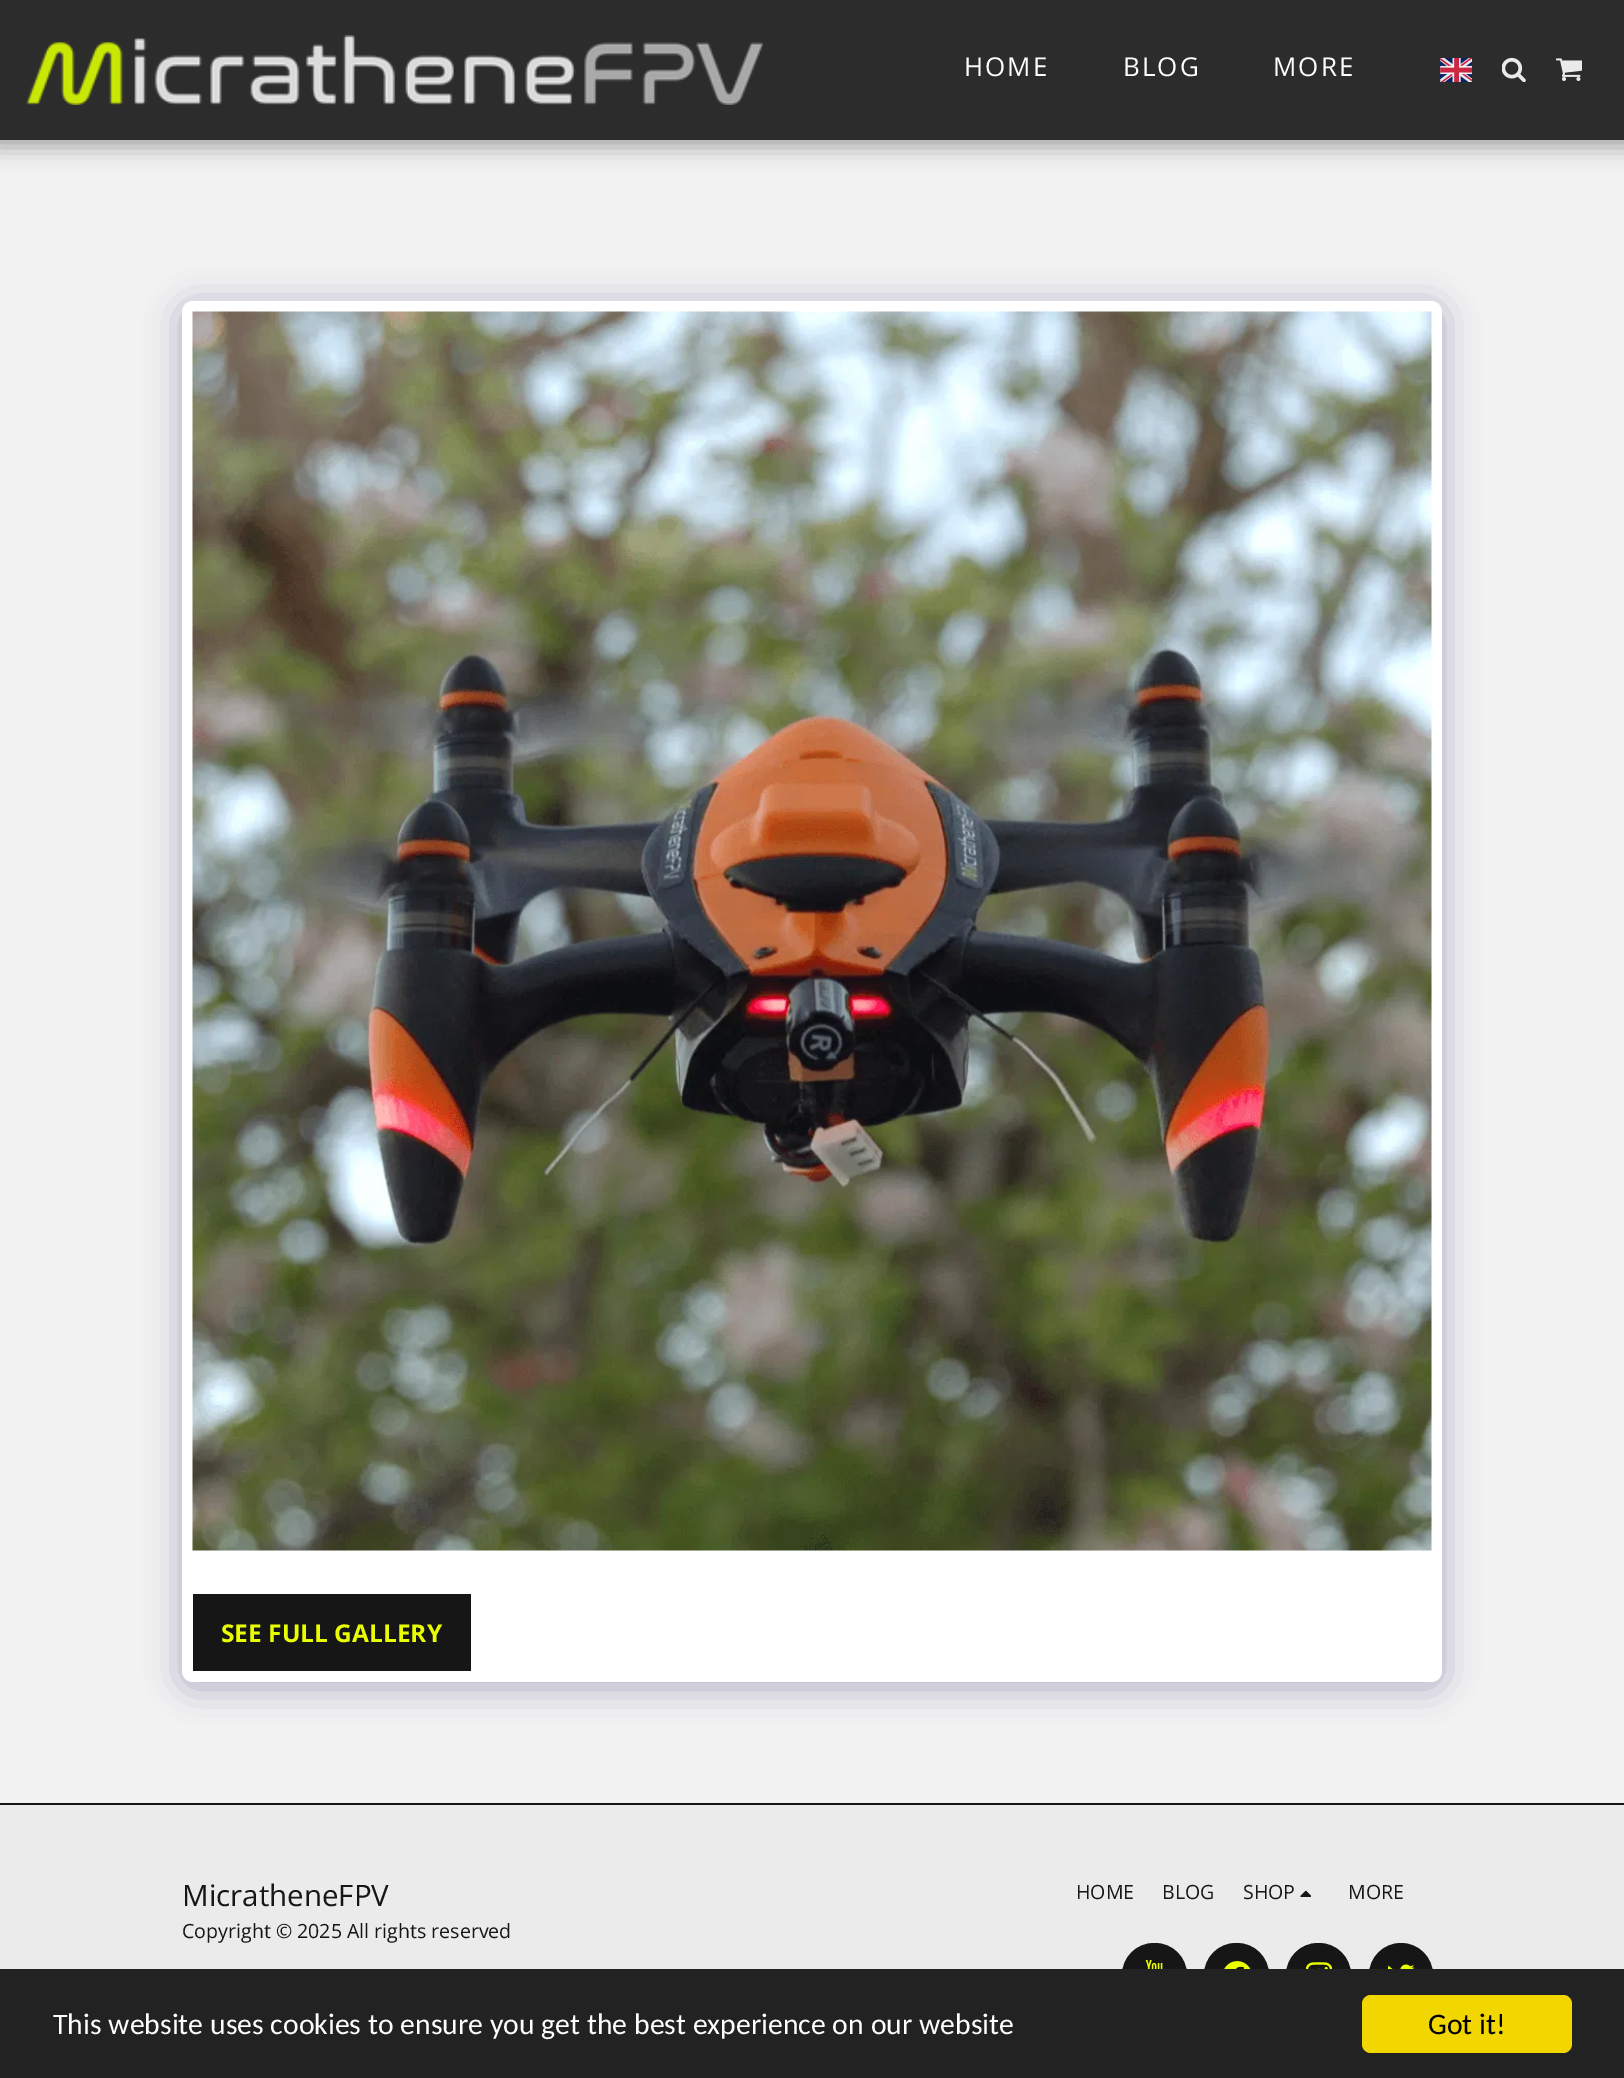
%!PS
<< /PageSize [1624 2078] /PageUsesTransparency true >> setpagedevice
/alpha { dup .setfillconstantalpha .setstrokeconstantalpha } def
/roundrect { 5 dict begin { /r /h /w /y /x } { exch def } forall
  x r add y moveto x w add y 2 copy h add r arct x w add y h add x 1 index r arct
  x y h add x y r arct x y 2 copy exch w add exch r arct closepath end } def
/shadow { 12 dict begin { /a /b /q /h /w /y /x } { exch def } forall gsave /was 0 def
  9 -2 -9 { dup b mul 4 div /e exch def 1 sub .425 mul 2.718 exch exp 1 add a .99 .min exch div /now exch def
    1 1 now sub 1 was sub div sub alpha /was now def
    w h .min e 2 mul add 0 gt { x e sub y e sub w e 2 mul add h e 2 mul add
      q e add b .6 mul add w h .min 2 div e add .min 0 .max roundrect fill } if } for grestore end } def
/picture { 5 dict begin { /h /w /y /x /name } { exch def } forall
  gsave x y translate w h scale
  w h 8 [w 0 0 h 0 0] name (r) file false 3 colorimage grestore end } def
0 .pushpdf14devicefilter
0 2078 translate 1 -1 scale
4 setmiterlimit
0.949 setgray
0 0 1624 2078 rectfill
0.094 setgray
-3 0 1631 147 0 10.5 0.35 shadow
0.173 setgray
0 0 1624 140 rectfill
(img1.rgb) 26 35 737 70 picture
/OpenSans-Regular [26 0 0 -26 0 0] selectfont
0.996 setgray
964 76 moveto 2 0 (HOME) ashow
1123 76 moveto 2 0 (BLOG) ashow
1273 76 moveto 2 0 (MORE) ashow
(img2.rgb) 1440 58 32 24 picture
(img3.rgb) 1502 57 24 25 picture
(img4.rgb) 1556 58 26 23 picture
0.302 0.247 0.478 setrgbcolor
182 306 1260 1381 11 17.5 0.4 shadow
1 setgray
182 301 1260 1381 11 roundrect fill
(img5.rgb) 192 311 1240 1240 picture
0.086 setgray
193 1594 278 77 rectfill
/OpenSans-Bold [24.5 0 0 -24.5 0 0] selectfont
0.914 1 0 setrgbcolor
221 1642 moveto (SEE FULL GALLERY) show
0.922 setgray
0 1805 1624 164 rectfill
0.086 setgray
0 1803 1624 2 rectfill
/OpenSans-Regular [29.5 0 0 -29.5 0 0] selectfont
182 1906 moveto (MicratheneFPV) show
/OpenSans-Regular [19.6 0 0 -19.6 0 0] selectfont
182 1938 moveto (Copyright © 2025 All rights reserved) show
1076 1899 moveto (HOME) show
1162 1899 moveto (BLOG) show
1243 1899 moveto (SHOP) show
(img6.rgb) 1300 1890 11 7 picture
1348 1899 moveto (MORE) show
1123 1944 63 62 31 roundrect gsave fill grestore
2 setlinewidth
stroke
(img7.rgb) 1145 1960 18 9 picture
1205 1944 63 62 31 roundrect gsave fill grestore
stroke
(img8.rgb) 1224 1961 27 8 picture
1287 1944 63 62 31 roundrect gsave fill grestore
stroke
(img9.rgb) 1306 1962 26 7 picture
newpath 1401 1975 31 0 360 arc closepath gsave fill grestore
stroke
(img10.rgb) 1387 1964 28 5 picture
0.133 setgray
0 1969 1624 109 rectfill
/Carlito-Regular [29.75 0 0 -29.75 0 0] selectfont
0.996 setgray
53 2034 moveto (This website uses cookies to ensure you get the best experience on our website) show
0.945 0.839 0 setrgbcolor
1362 1995 210 58 9 roundrect fill
0 setgray
1428 2034 moveto (Got it!) show
.poppdf14devicefilter showpage
